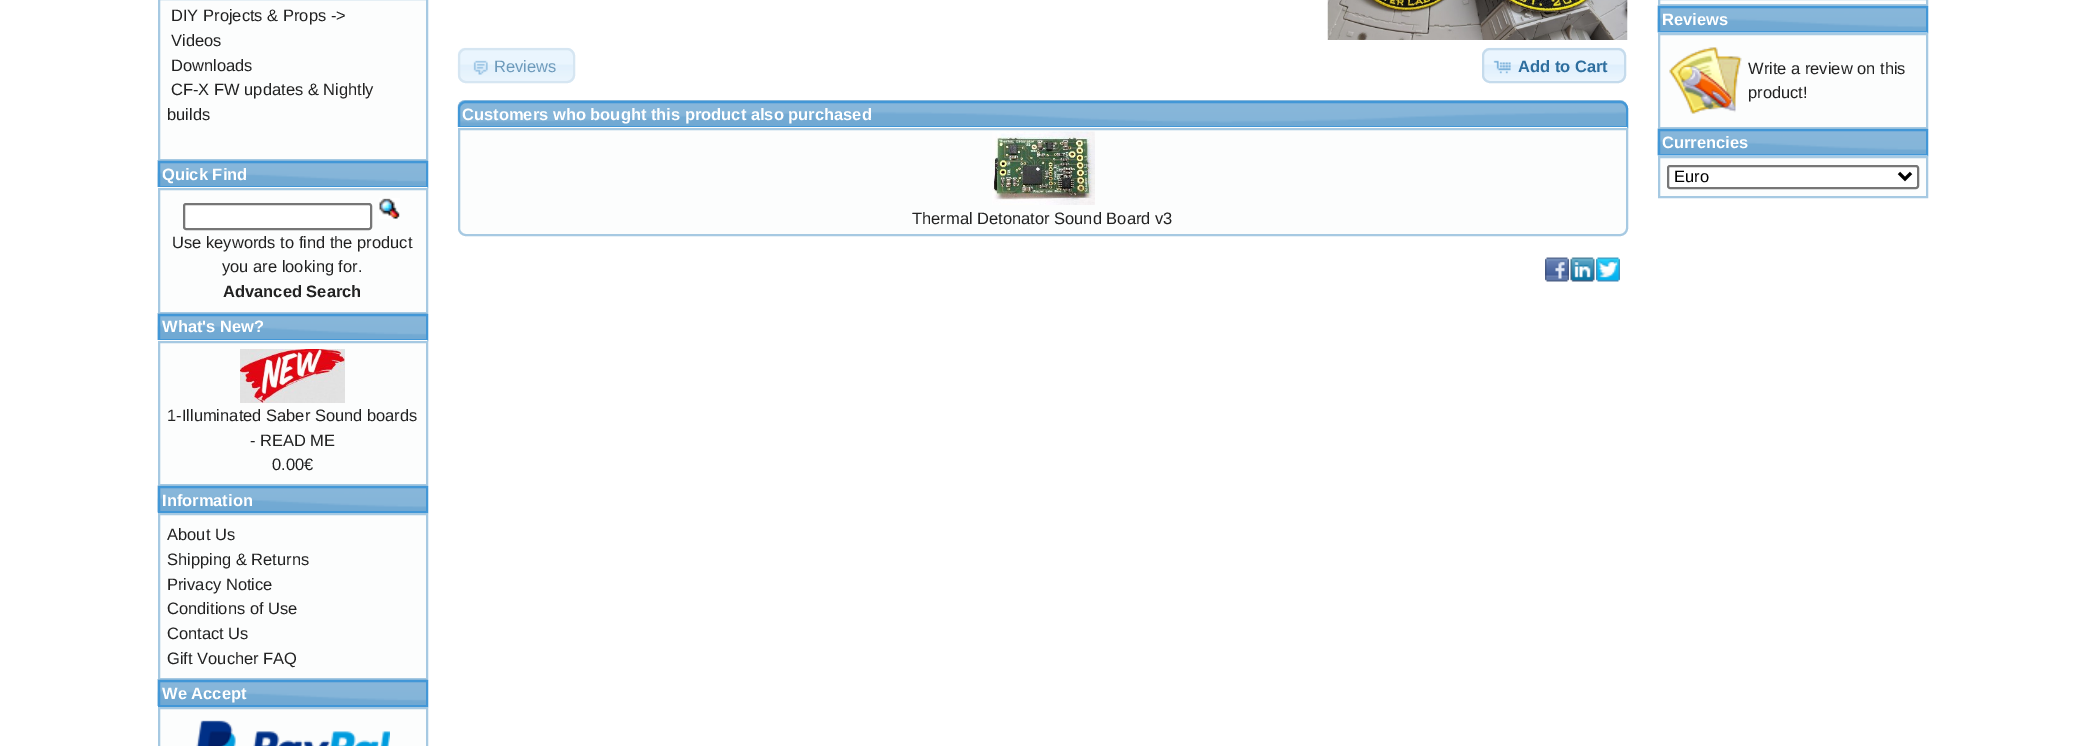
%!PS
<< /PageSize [2084 746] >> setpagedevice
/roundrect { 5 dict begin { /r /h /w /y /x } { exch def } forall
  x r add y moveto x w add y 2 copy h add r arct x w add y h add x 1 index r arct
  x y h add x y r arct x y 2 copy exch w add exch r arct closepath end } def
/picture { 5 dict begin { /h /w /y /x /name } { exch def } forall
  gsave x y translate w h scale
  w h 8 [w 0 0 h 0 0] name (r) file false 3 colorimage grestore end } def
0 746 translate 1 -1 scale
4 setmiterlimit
1 setgray
0 0 2084 746 rectfill
0.988 0.992 0.992 setrgbcolor
newpath 159 -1 moveto 427 -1 lineto 427 160 lineto 159 160 lineto closepath gsave fill grestore
0.651 0.788 0.886 setrgbcolor
2 setlinewidth
stroke
/LiberationSans-Regular [16.5 0 0 -16.5 0 0] selectfont
0.133 setgray
171 21 moveto (DIY Projects & Props ->) show
171 46 moveto (Videos) show
171 71 moveto (Downloads) show
171 95 moveto (CF-X FW updates & Nightly) show
167 120 moveto (builds) show
(img1.rgb) 157 160 271 27 picture
0.259 0.592 0.843 setrgbcolor
159 162 268 25 rectstroke
/LiberationSans-Bold [16.5 0 0 -16.5 0 0] selectfont
1 setgray
162 180 moveto (Quick Find) show
0.988 0.992 0.992 setrgbcolor
newpath 159 189 moveto 427 189 lineto 427 313 lineto 159 313 lineto closepath gsave fill grestore
0.651 0.788 0.886 setrgbcolor
stroke
(img2.rgb) 158 187 270 1 picture
1 setgray
184 204 187 25 2 roundrect gsave fill grestore
0.463 setgray
stroke
(img3.rgb) 379 198 21 21 picture
/LiberationSans-Regular [16.5 0 0 -16.5 0 0] selectfont
0.133 setgray
172 248 moveto (Use keywords to find the product) show
222 272 moveto (you are looking for.) show
/LiberationSans-Bold [16.5 0 0 -16.5 0 0] selectfont
223 297 moveto (Advanced Search) show
(img1.rgb) 157 313 271 27 picture
0.259 0.592 0.843 setrgbcolor
159 315 268 25 rectstroke
1 setgray
162 332 moveto (What's New?) show
0.988 0.992 0.992 setrgbcolor
newpath 159 342 moveto 427 342 lineto 427 485 lineto 159 485 lineto closepath gsave fill grestore
0.651 0.788 0.886 setrgbcolor
stroke
(img2.rgb) 158 340 270 1 picture
(img4.rgb) 240 349 105 54 picture
/LiberationSans-Regular [16.5 0 0 -16.5 0 0] selectfont
0.133 setgray
167 421 moveto (1-Illuminated Saber Sound boards) show
250 446 moveto (- READ ME) show
272 470 moveto (0.00€) show
(img5.rgb) 157 485 271 28 picture
0.259 0.592 0.843 setrgbcolor
159 487 268 25 rectstroke
/LiberationSans-Bold [16.5 0 0 -16.5 0 0] selectfont
1 setgray
162 506 moveto (Information) show
0.988 0.992 0.992 setrgbcolor
newpath 159 514 moveto 427 514 lineto 427 679 lineto 159 679 lineto closepath gsave fill grestore
0.651 0.788 0.886 setrgbcolor
stroke
/LiberationSans-Regular [16.5 0 0 -16.5 0 0] selectfont
0.133 setgray
167 540 moveto (About Us) show
167 565 moveto (Shipping & Returns) show
167 590 moveto (Privacy Notice) show
167 614 moveto (Conditions of Use) show
167 639 moveto (Contact Us) show
167 664 moveto (Gift Voucher FAQ) show
(img1.rgb) 157 679 271 27 picture
0.259 0.592 0.843 setrgbcolor
159 681 268 25 rectstroke
/LiberationSans-Bold [16.5 0 0 -16.5 0 0] selectfont
1 setgray
162 699 moveto (We Accept) show
0.988 0.992 0.992 setrgbcolor
newpath 159 708 moveto 427 708 lineto 427 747 lineto 159 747 lineto closepath gsave fill grestore
0.651 0.788 0.886 setrgbcolor
stroke
(img6.rgb) 196 720 194 26 picture
(img7.rgb) 1327 0 301 40 picture
0.914 0.957 0.992 setrgbcolor
458 48 117 35 8 roundrect fill
(img8.rgb) 457 47 117 31 picture
0.839 0.902 0.949 setrgbcolor
459 49 115 33 7 roundrect stroke
(img9.rgb) 473 60 15 15 picture
/LiberationSans-Regular [16.5 0 0 -16.5 0 0] selectfont
0.427 0.604 0.733 setrgbcolor
494 72 moveto (Reviews) show
(img10.rgb) 1482 47 144 35 picture
0.773 0.859 0.925 setrgbcolor
1483 49 142 33 7 roundrect stroke
(img11.rgb) 1493 60 18 14 picture
/LiberationSans-Bold [16.5 0 0 -16.5 0 0] selectfont
0.18 0.431 0.62 setrgbcolor
1518 72 moveto (Add to Cart) show
(img12.rgb) 457 100 1171 27 picture
0.259 0.592 0.843 setrgbcolor
newpath 466 102 moveto 1620 102 lineto 1624 102 1627 105 1627 109 curveto 1627 127 lineto 459 127 lineto 459 109 lineto 459 105 462 102 466 102 curveto closepath stroke
1 setgray
462 120 moveto (Customers who bought this product also purchased) show
0.988 0.992 0.992 setrgbcolor
newpath 459 129 moveto 1627 129 lineto 1627 228 lineto 1627 232 1624 235 1620 235 curveto 466 235 lineto 462 235 459 232 459 228 curveto closepath gsave fill grestore
0.651 0.788 0.886 setrgbcolor
stroke
(img13.rgb) 458 127 1170 1 picture
(img14.rgb) 992 131 103 74 picture
/LiberationSans-Regular [16.5 0 0 -16.5 0 0] selectfont
0.133 setgray
912 224 moveto (Thermal Detonator Sound Board v3) show
(img15.rgb) 1545 257 24 25 picture
(img16.rgb) 1570 257 25 25 picture
(img17.rgb) 1596 257 24 25 picture
0.988 0.992 0.992 setrgbcolor
newpath 1659 -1 moveto 1927 -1 lineto 1927 5 lineto 1659 5 lineto closepath gsave fill grestore
0.651 0.788 0.886 setrgbcolor
stroke
(img5.rgb) 1657 5 271 28 picture
0.259 0.592 0.843 setrgbcolor
1659 7 268 25 rectstroke
/LiberationSans-Bold [16.5 0 0 -16.5 0 0] selectfont
1 setgray
1662 25 moveto (Reviews) show
0.988 0.992 0.992 setrgbcolor
newpath 1659 34 moveto 1927 34 lineto 1927 128 lineto 1659 128 lineto closepath gsave fill grestore
0.651 0.788 0.886 setrgbcolor
stroke
(img18.rgb) 1657 32 271 1 picture
(img19.rgb) 1669 47 73 67 picture
/LiberationSans-Regular [16.5 0 0 -16.5 0 0] selectfont
0.133 setgray
1748 74 moveto (Write a review on this) show
1748 98 moveto (product!) show
(img5.rgb) 1657 128 271 28 picture
0.259 0.592 0.843 setrgbcolor
1659 130 268 25 rectstroke
/LiberationSans-Bold [16.5 0 0 -16.5 0 0] selectfont
1 setgray
1662 148 moveto (Currencies) show
0.988 0.992 0.992 setrgbcolor
newpath 1659 157 moveto 1927 157 lineto 1927 197 lineto 1659 197 lineto closepath gsave fill grestore
0.651 0.788 0.886 setrgbcolor
stroke
(img20.rgb) 1657 155 271 1 picture
1 setgray
1668 166 250 22 2 roundrect gsave fill grestore
0.463 setgray
stroke
0 setgray
3 setlinewidth
newpath 1899 173 moveto 1905 179 lineto 1911 173 lineto stroke
/LiberationSans-Regular [16.5 0 0 -16.5 0 0] selectfont
1674 182 moveto (Euro) show
showpage
